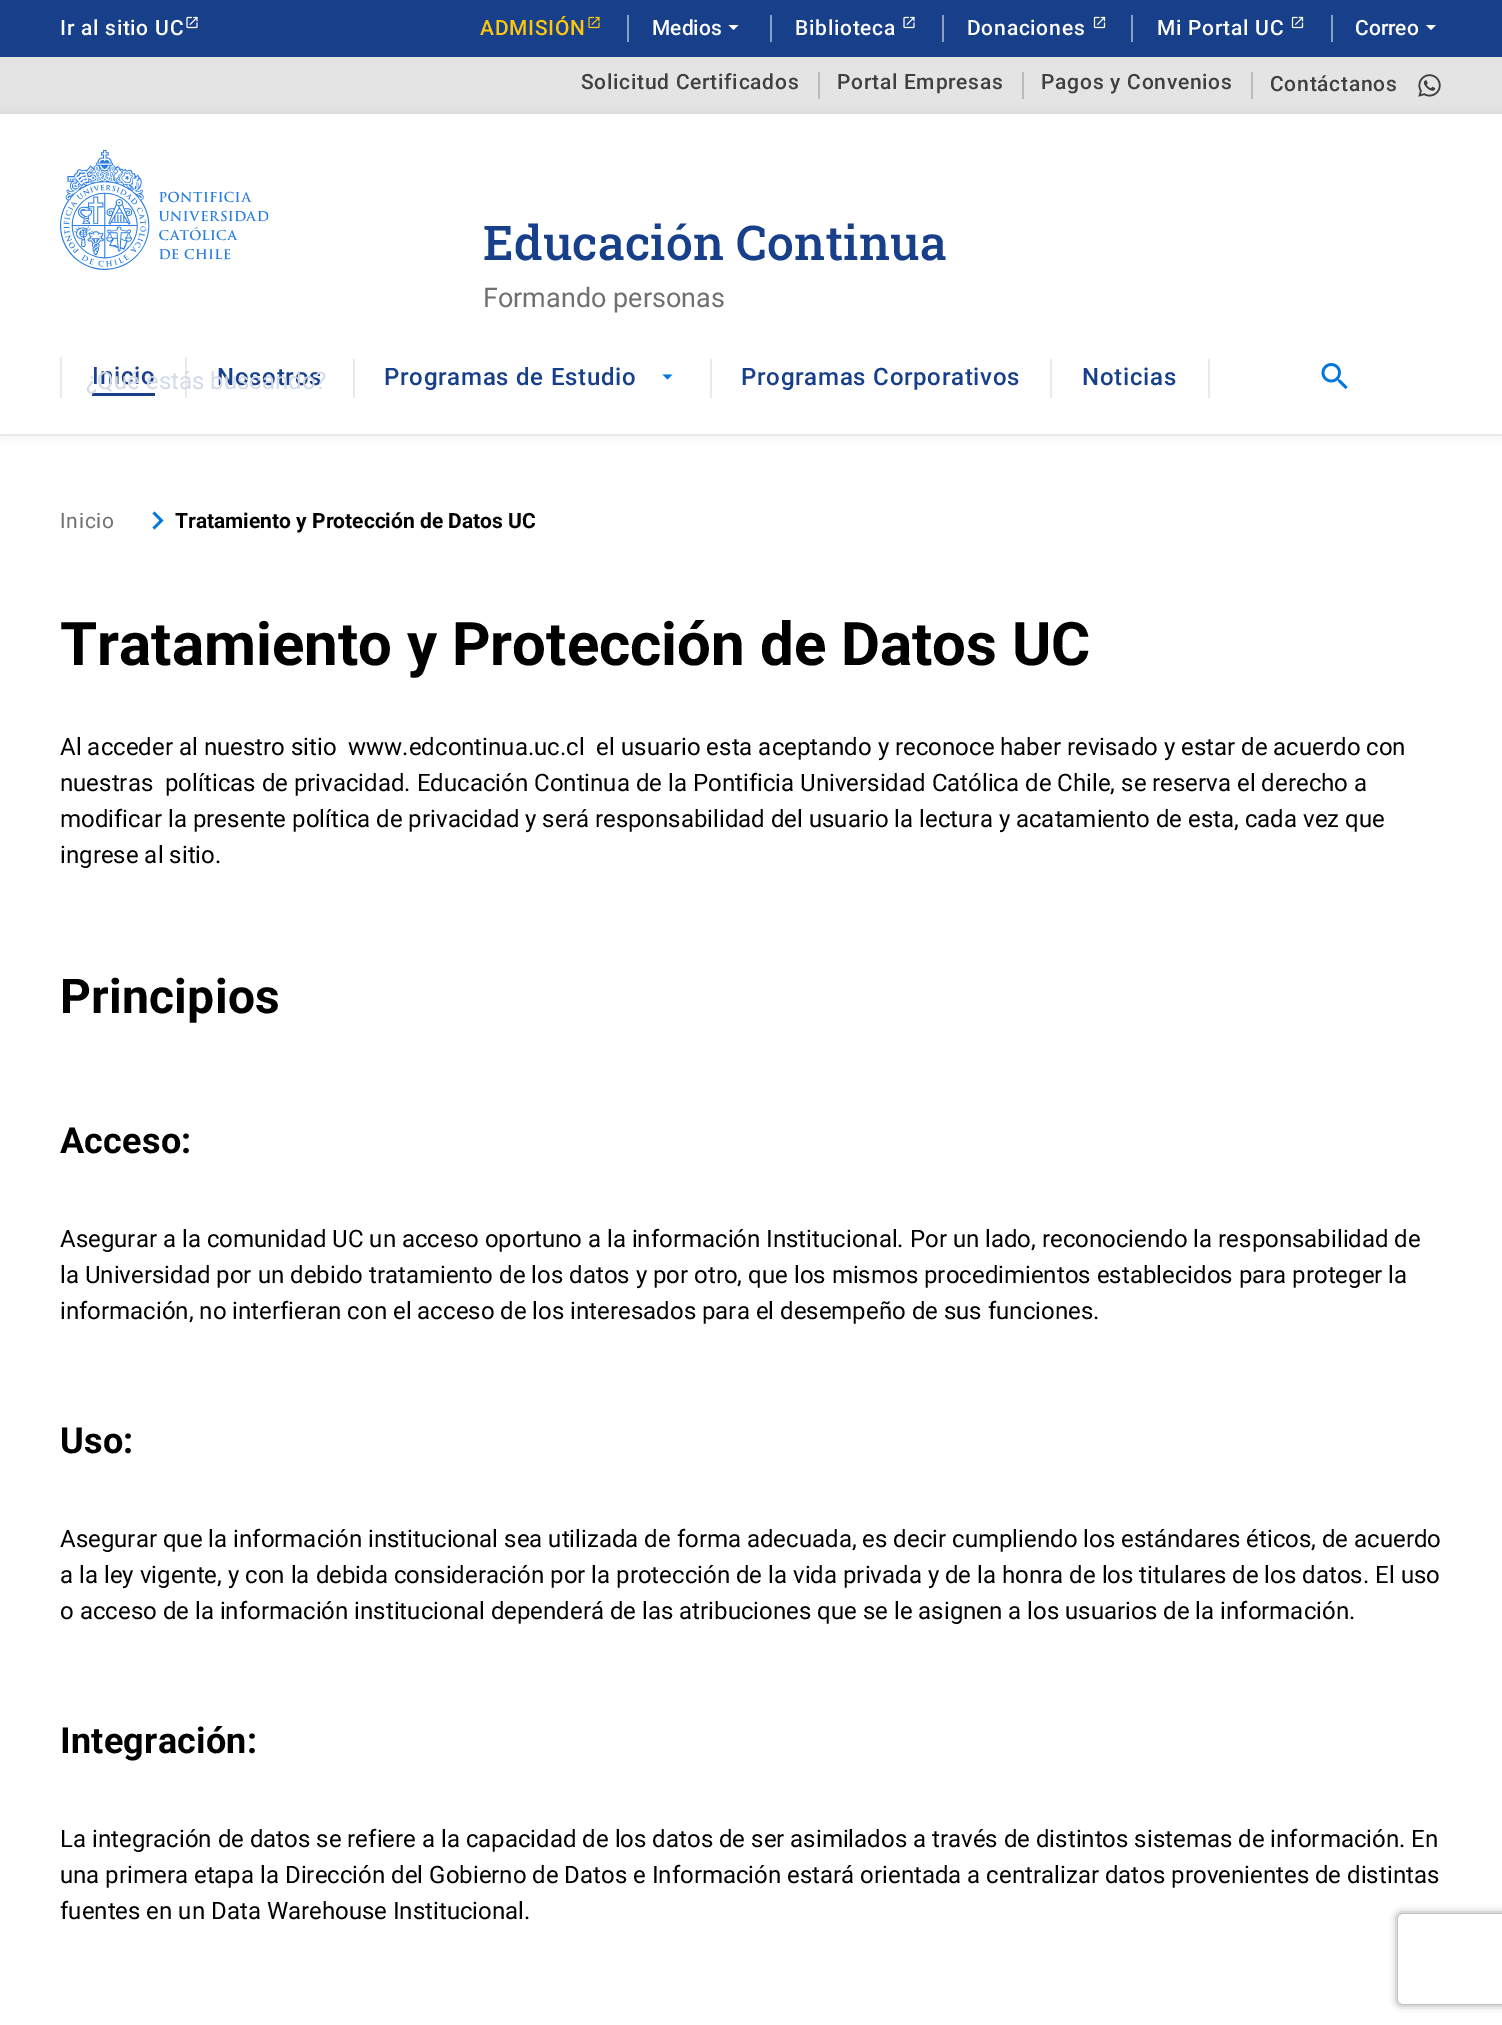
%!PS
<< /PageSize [1502 2025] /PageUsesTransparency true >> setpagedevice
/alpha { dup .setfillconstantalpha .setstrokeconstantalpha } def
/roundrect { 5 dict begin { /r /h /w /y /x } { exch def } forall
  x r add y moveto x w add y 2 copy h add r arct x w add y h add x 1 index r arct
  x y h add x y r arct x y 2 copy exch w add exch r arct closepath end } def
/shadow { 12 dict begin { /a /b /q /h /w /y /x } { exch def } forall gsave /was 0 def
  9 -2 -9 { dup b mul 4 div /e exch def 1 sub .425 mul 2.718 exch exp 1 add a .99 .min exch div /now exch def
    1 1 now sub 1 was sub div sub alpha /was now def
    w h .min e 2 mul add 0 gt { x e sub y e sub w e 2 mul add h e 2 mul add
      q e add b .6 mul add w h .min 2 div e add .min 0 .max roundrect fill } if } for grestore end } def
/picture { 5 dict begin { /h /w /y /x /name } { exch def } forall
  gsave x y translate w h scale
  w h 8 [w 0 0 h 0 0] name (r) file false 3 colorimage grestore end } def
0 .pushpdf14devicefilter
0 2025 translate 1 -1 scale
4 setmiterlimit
1 setgray
0 0 1502 2025 rectfill
0.09 0.247 0.541 setrgbcolor
0 0 1502 57 rectfill
/Roboto-Medium [21 0 0 -21 0 0] selectfont
1 setgray
60 35 moveto 0.75 0 (Ir al sitio UC) ashow
(img1.rgb) 186 16 12 13 picture
0.996 0.776 0.051 setrgbcolor
480 35 moveto 0.75 0 (ADMISIÓN) ashow
(img2.rgb) 588 16 12 13 picture
0.545 0.624 0.769 setrgbcolor
627 15 2 27 rectfill
1 setgray
652 35 moveto (Medios) show
newpath 728.5 25 moveto 738.5 25 lineto 733.5 30 lineto closepath fill
0.545 0.624 0.769 setrgbcolor
770 15 2 27 rectfill
1 setgray
795 35 moveto 0.75 0 (Biblioteca) ashow
(img1.rgb) 903 16 12 13 picture
0.545 0.624 0.769 setrgbcolor
942 15 2 27 rectfill
1 setgray
967 35 moveto 0.75 0 (Donaciones) ashow
(img3.rgb) 1093 16 13 13 picture
0.545 0.624 0.769 setrgbcolor
1131 15 2 27 rectfill
1 setgray
1157 35 moveto 0.75 0 (Mi Portal UC) ashow
(img3.rgb) 1291 16 13 13 picture
0.545 0.624 0.769 setrgbcolor
1331 15 2 27 rectfill
1 setgray
1355 35 moveto (Correo) show
newpath 1426 25 moveto 1436 25 lineto 1431 30 lineto closepath fill
0.894 setgray
0 57 1502 57 rectfill
0.247 setgray
581 89 moveto 0.75 0 (Solicitud Certificados) ashow
gsave
newpath 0 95 moveto 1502 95 lineto 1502 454 lineto 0 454 lineto closepath 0 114 moveto 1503 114 lineto 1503 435 lineto 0 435 lineto closepath eoclip newpath
0.533 setgray
0 114 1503 321 0 6 0.18 shadow
grestore
0.733 setgray
818 72 2 27 rectfill
0.247 setgray
837 89 moveto 0.75 0 (Portal Empresas) ashow
0.733 setgray
1022 72 2 27 rectfill
0.247 setgray
1041 89 moveto 0.75 0 (Pagos y Convenios) ashow
0.733 setgray
1251 72 2 27 rectfill
0.247 setgray
1270 91 moveto 0.75 0 (Contáctanos) ashow
(img4.rgb) 1418 74 23 23 picture
0.918 setgray
0 434 1502 2 rectfill
(img5.rgb) 60 150 209 120 picture
/RobotoSlab-Medium [48 0 0 -48 0 0] selectfont
0.09 0.247 0.541 setrgbcolor
483 260 moveto 0.25 0 (Educación Continua) ashow
/Roboto-Regular [27 0 0 -27 0 0] selectfont
0.439 setgray
483 307 moveto (Formando personas) show
0.918 setgray
185 357 2 41 rectfill
60 357 2 41 rectfill
0.09 0.247 0.541 setrgbcolor
92 393 63 3 rectfill
/Roboto-Medium [24 0 0 -24 0 0] selectfont
92 384 moveto 0.75 0 (Inicio) ashow
0.918 setgray
353 359 2 39 rectfill
0.09 0.247 0.541 setrgbcolor
217 385 moveto 0.75 0 (Nosotros) ashow
0.918 setgray
710 359 2 39 rectfill
0.09 0.247 0.541 setrgbcolor
384 385 moveto 0.75 0 (Programas de Estudio) ashow
0.004 0.463 0.871 setrgbcolor
newpath 662.5 374.5 moveto 672.5 374.5 lineto 667.5 379.5 lineto closepath fill
0.918 setgray
1050 359 2 39 rectfill
0.09 0.247 0.541 setrgbcolor
741 385 moveto 0.75 0 (Programas Corporativos) ashow
0.918 setgray
1208 359 2 39 rectfill
0.09 0.247 0.541 setrgbcolor
1082 385 moveto 0.75 0 (Noticias) ashow
/Roboto-Regular [24 0 0 -24 0 0] selectfont
0.824 0.855 0.91 setrgbcolor
86 389 moveto (¿Qué estás buscando?) show
(img6.rgb) 1321 363 27 27 picture
/Roboto-Regular [21 0 0 -21 0 0] selectfont
0.439 setgray
60 528 moveto 0.75 0 (Inicio) ashow
0.004 0.463 0.871 setrgbcolor
newpath 152.5 527.5 moveto 159.5 520.5 lineto 152.5 513.5 lineto 154.5 511.5 lineto 163.5 520.5 lineto 154.5 529.5 lineto closepath fill
/Roboto-Bold [21 0 0 -21 0 0] selectfont
0 setgray
175 528 moveto (Tratamiento y Protección de Datos UC) show
/Roboto-Bold [60 0 0 -60 0 0] selectfont
60 665 moveto (Tratamiento y Protección de Datos UC) show
/Roboto-Regular [24 0 0 -24 0 0] selectfont
60 755 moveto (Al acceder al nuestro sitio  www.edcontinua.uc.cl  el usuario esta aceptando y reconoce haber revisado y estar de acuerdo con) show
60 791 moveto (nuestras  políticas de privacidad. Educación Continua de la Pontificia Universidad Católica de Chile, se reserva el derecho a) show
60 827 moveto (modificar la presente política de privacidad y será responsabilidad del usuario la lectura y acatamiento de esta, cada vez que) show
60 863 moveto (ingrese al sitio.) show
/Roboto-Bold [48 0 0 -48 0 0] selectfont
60 1013 moveto 0.25 0 (Principios) ashow
/Roboto-Bold [36 0 0 -36 0 0] selectfont
60 1153 moveto 0.25 0 (Acceso:) ashow
/Roboto-Regular [24 0 0 -24 0 0] selectfont
60 1247 moveto (Asegurar a la comunidad UC un acceso oportuno a la información Institucional. Por un lado, reconociendo la responsabilidad de) show
60 1283 moveto (la Universidad por un debido tratamiento de los datos y por otro, que los mismos procedimientos establecidos para proteger la) show
60 1319 moveto (información, no interfieran con el acceso de los interesados para el desempeño de sus funciones.) show
/Roboto-Bold [36 0 0 -36 0 0] selectfont
60 1453 moveto 0.25 0 (Uso:) ashow
/Roboto-Regular [24 0 0 -24 0 0] selectfont
60 1547 moveto (Asegurar que la información institucional sea utilizada de forma adecuada, es decir cumpliendo los estándares éticos, de acuerdo) show
60 1583 moveto (a la ley vigente, y con la debida consideración por la protección de la vida privada y de la honra de los titulares de los datos. El uso) show
60 1619 moveto (o acceso de la información institucional dependerá de las atribuciones que se le asignen a los usuarios de la información.) show
/Roboto-Bold [36 0 0 -36 0 0] selectfont
60 1753 moveto 0.25 0 (Integración:) ashow
/Roboto-Regular [24 0 0 -24 0 0] selectfont
60 1847 moveto (La integración de datos se refiere a la capacidad de los datos de ser asimilados a través de distintos sistemas de información. En) show
60 1883 moveto (una primera etapa la Dirección del Gobierno de Datos e Información estará orientada a centralizar datos provenientes de distintas) show
60 1919 moveto (fuentes en un Data Warehouse Institucional.) show
gsave
newpath 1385 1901 moveto 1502 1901 lineto 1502 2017 lineto 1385 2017 lineto closepath 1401 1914 moveto 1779 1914 lineto 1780.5 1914 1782 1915.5 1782 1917 curveto 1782 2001 lineto 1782 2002.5 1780.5 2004 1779 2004 curveto 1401 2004 lineto 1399.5 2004 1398 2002.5 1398 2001 curveto 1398 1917 lineto 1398 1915.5 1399.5 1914 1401 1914 curveto closepath eoclip newpath
0.502 setgray
1398 1914 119 90 3 4 1 shadow
grestore
.poppdf14devicefilter showpage
